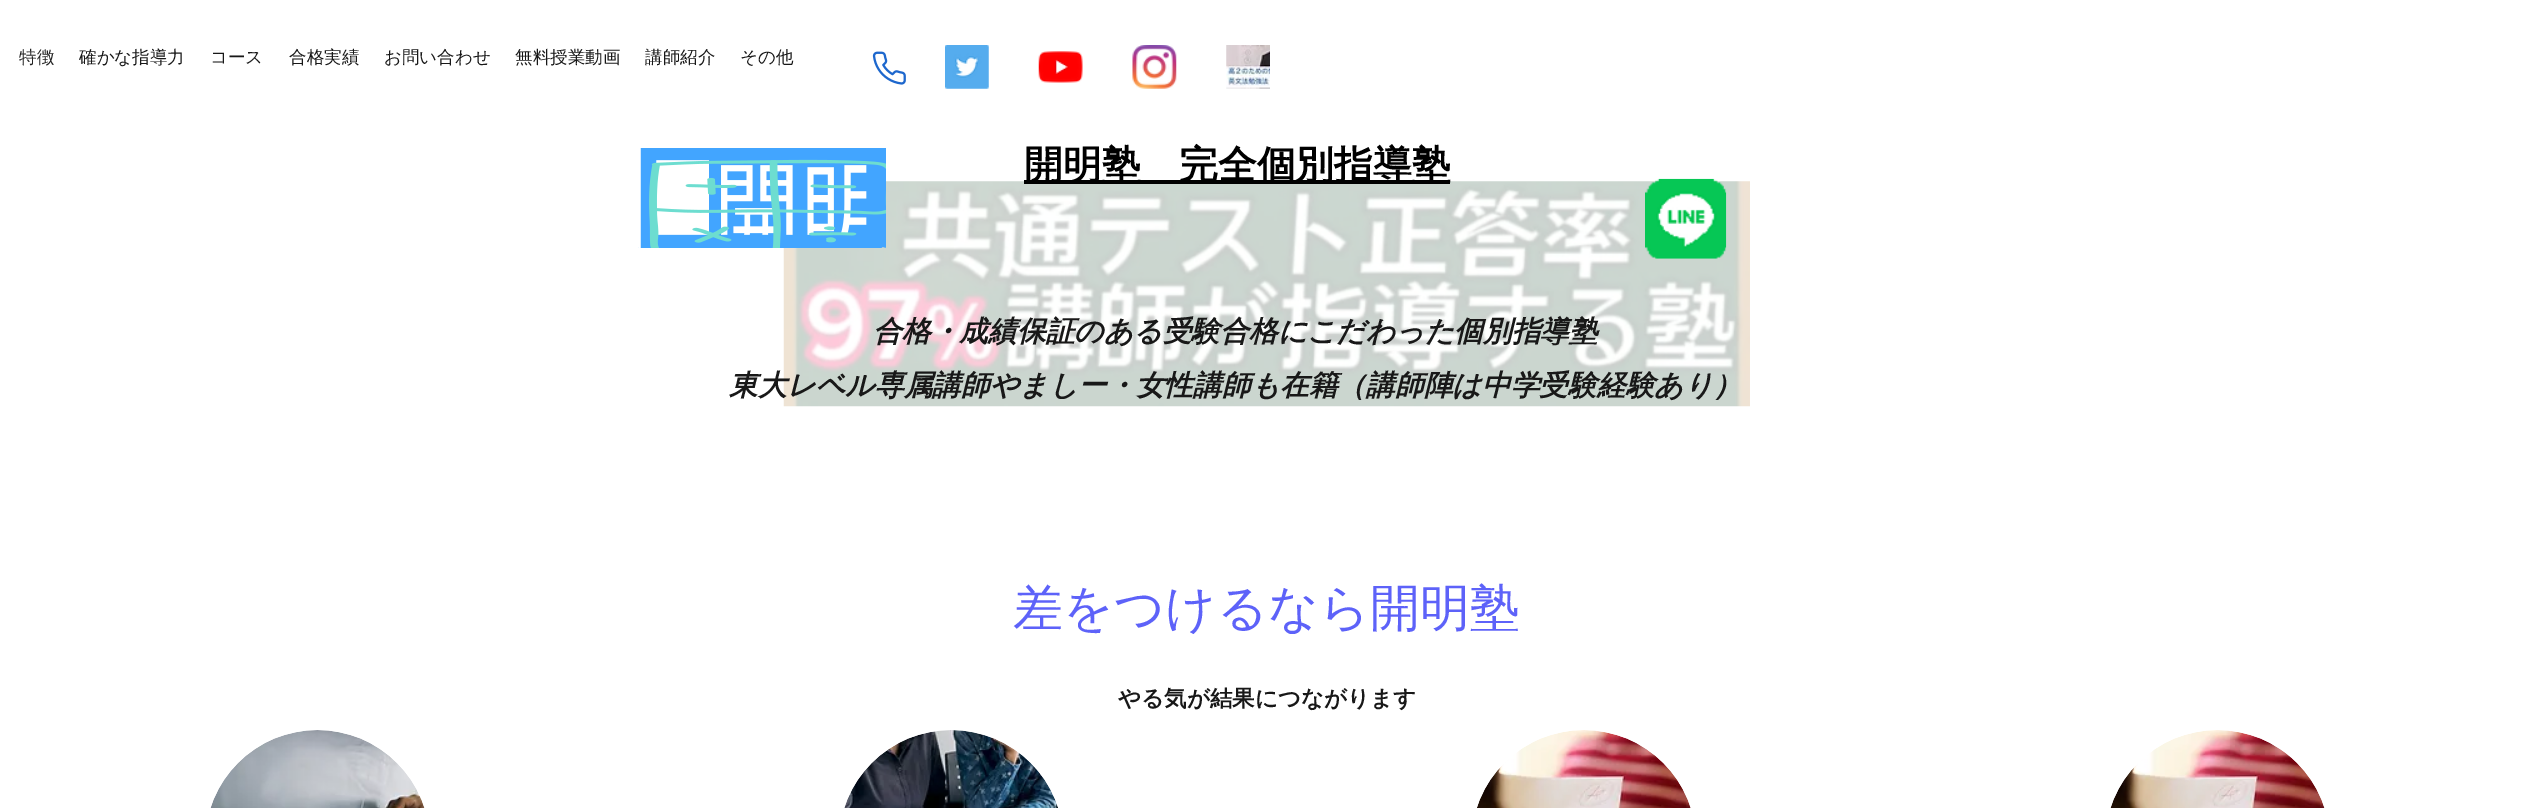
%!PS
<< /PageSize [2533 808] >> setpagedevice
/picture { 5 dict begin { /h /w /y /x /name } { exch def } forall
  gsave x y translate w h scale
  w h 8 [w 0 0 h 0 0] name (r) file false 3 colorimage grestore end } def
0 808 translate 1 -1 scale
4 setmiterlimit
1 setgray
0 0 2533 808 rectfill
/WenQuanYiZenHei-Medium [17.5 0 0 -17.5 0 0] selectfont
0.137 setgray
19 63 moveto (特徴) show
0.094 setgray
79 63 moveto (確かな指導力) show
210 63 moveto (コース) show
289 63 moveto (合格実績) show
384 63 moveto (お問い合わせ) show
515 63 moveto (無料授業動画) show
645 63 moveto (講師紹介) show
740 63 moveto (その他) show
(img1.rgb) 872 51 34 34 picture
(img2.rgb) 945 45 44 44 picture
(img3.rgb) 1038 51 45 32 picture
(img4.rgb) 1132 45 45 44 picture
(img5.rgb) 1226 45 44 44 picture
(img8.rgb) 783 181 967 226 picture
(img6.rgb) 638 148 248 100 picture
0 setgray
1024 180 426 4 rectfill
/WenQuanYiZenHei-Bold [38.75 0 0 -38.75 0 0] selectfont
1024 178 moveto (開明塾　完全個別指導塾) show
(img7.rgb) 1645 178 82 81 picture
/WenQuanYiZenHei-BoldItalic [28.75 0 0 -28.75 0 0] selectfont
0.094 setgray
873 341 moveto (合格・成績保証のある受験合格にこだわった個別指導塾) show
729 395 moveto (東大レベル専属講師やましー・女性講師も在籍（講師陣は中学受験経験あり）) show
/WenQuanYiZenHei-Medium [50 0 0 -50 0 0] selectfont
0.365 0.384 0.976 setrgbcolor
1013 625 moveto (差をつけるなら開明塾) show
/WenQuanYiZenHei-Bold [22.5 0 0 -22.5 0 0] selectfont
0.094 setgray
1118 706 moveto (やる気が結果につながります) show
(img9.rgb) 210 730 215 78 picture
(img10.rgb) 844 730 214 78 picture
(img11.rgb) 1477 730 214 78 picture
(img12.rgb) 2110 730 215 78 picture
showpage
